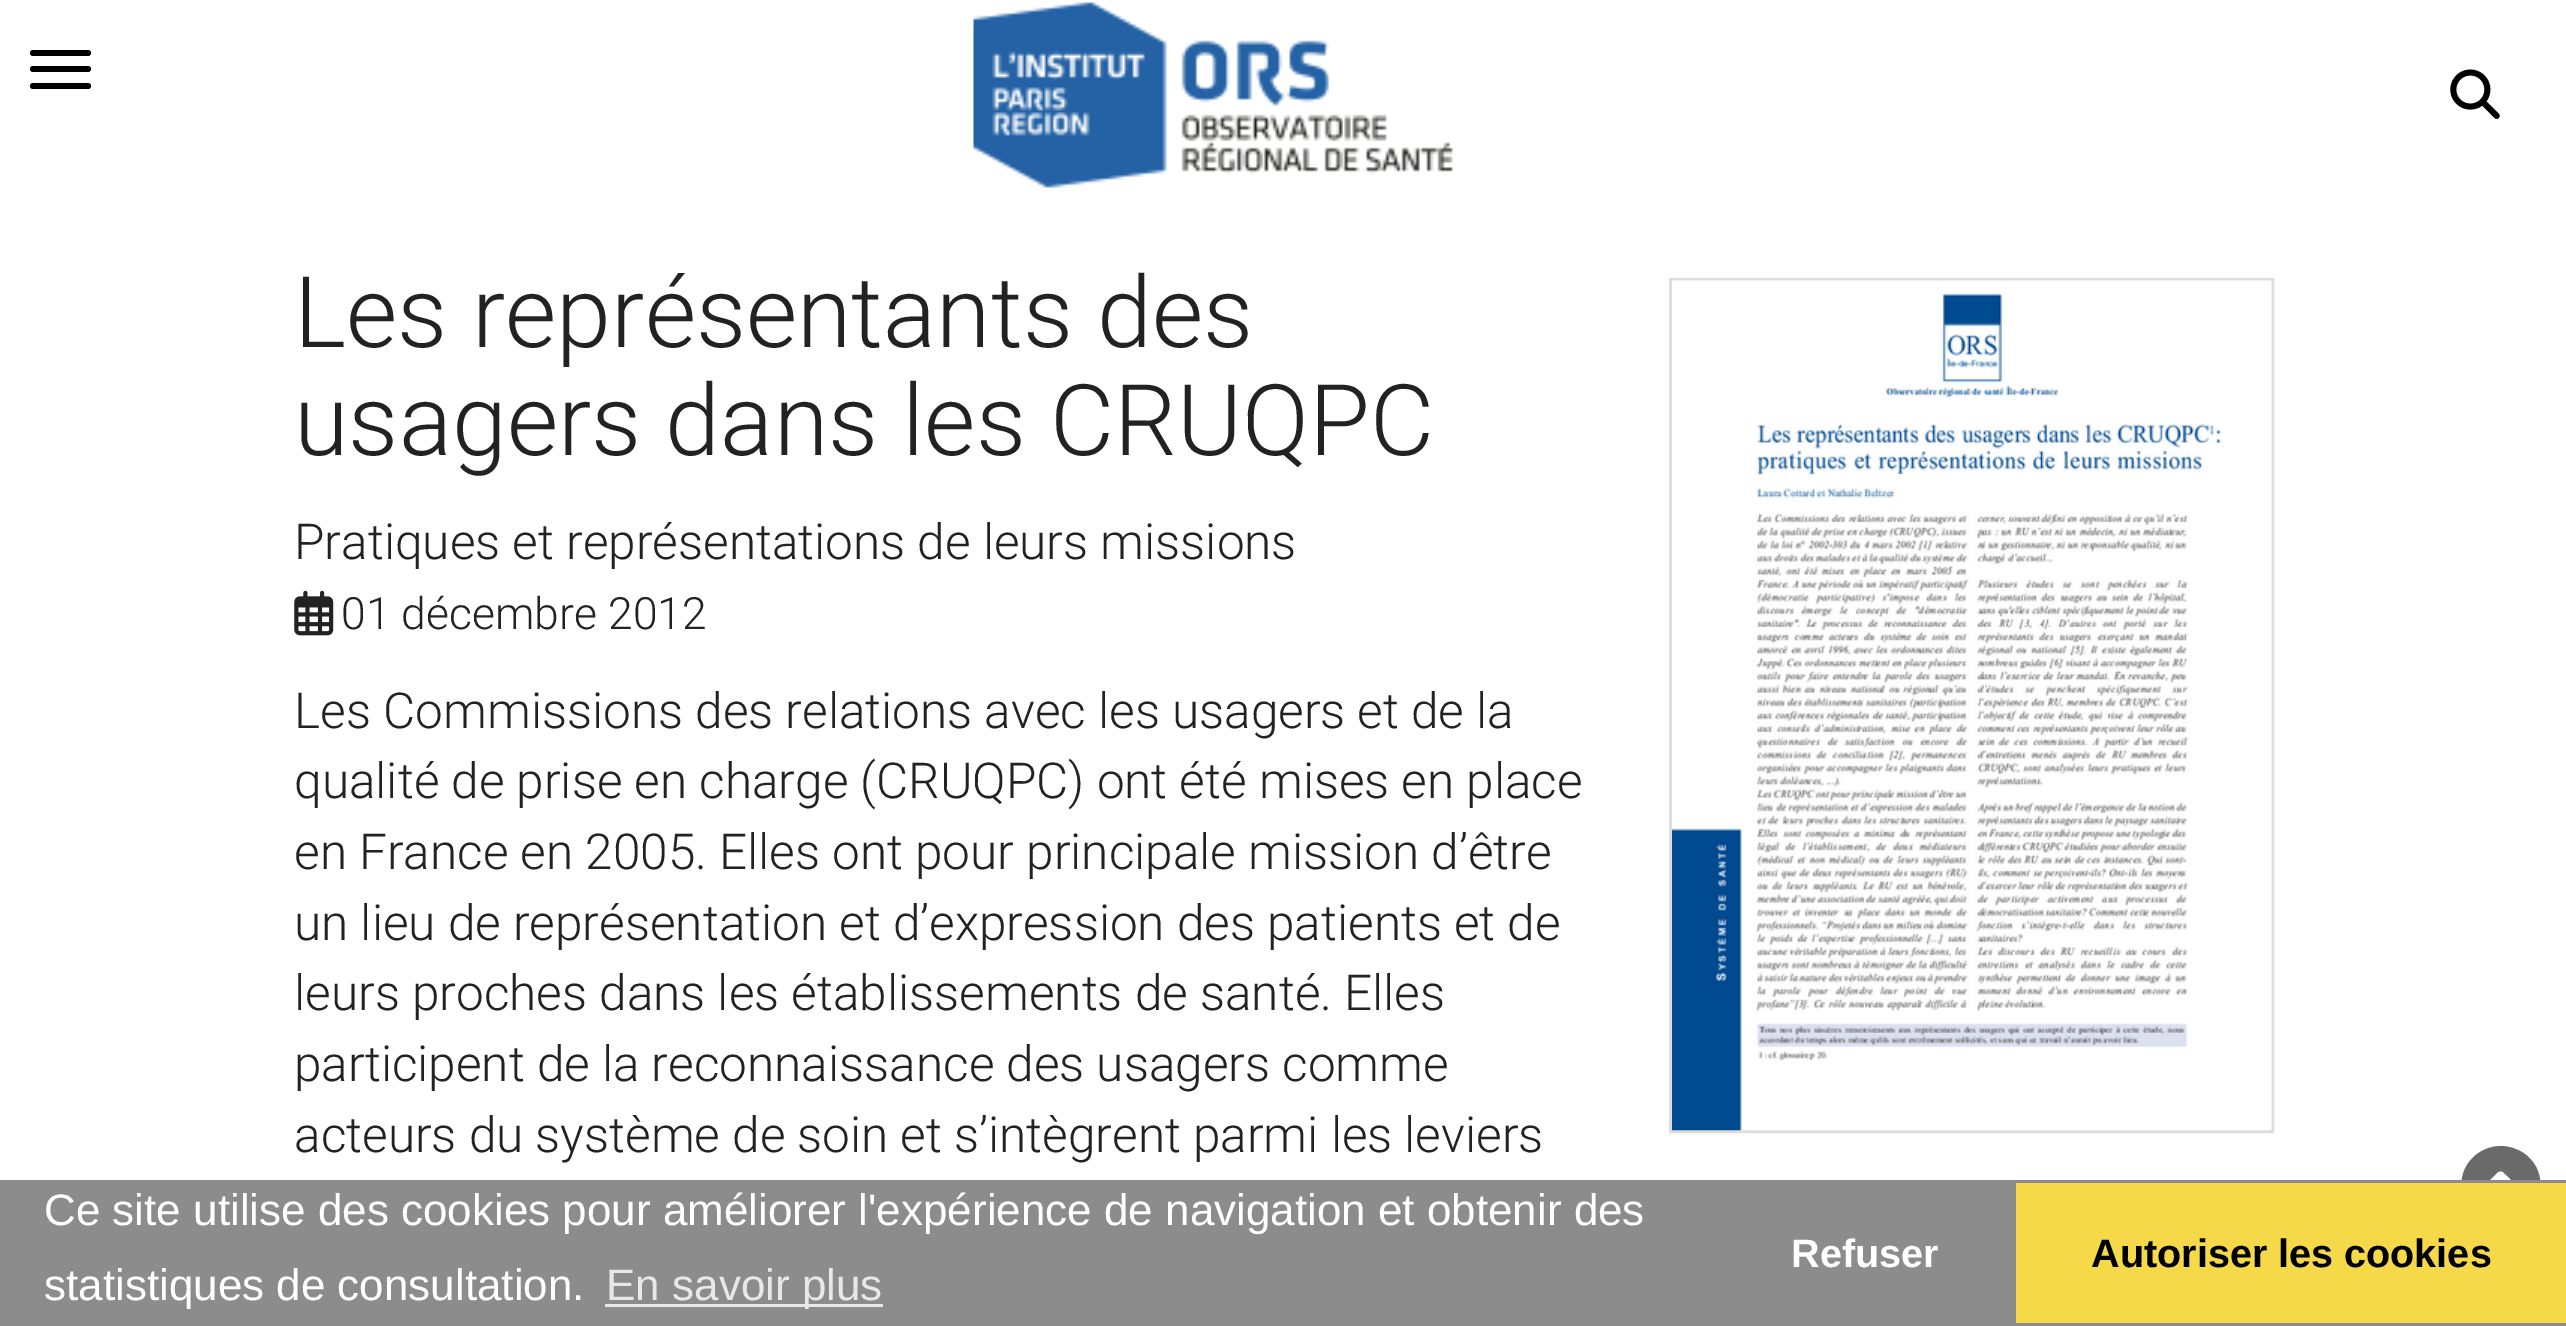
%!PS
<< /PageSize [2566 1326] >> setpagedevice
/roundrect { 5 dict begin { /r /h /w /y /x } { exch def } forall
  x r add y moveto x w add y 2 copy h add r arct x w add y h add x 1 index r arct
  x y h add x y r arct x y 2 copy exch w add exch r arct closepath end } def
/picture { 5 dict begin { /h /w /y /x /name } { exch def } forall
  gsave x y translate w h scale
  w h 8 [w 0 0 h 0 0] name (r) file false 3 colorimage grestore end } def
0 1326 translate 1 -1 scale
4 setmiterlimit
1 setgray
0 0 2566 1326 rectfill
0 setgray
30 50 61 6 3 roundrect fill
30 66 61 6 3 roundrect fill
30 83 61 6 3 roundrect fill
(img1.rgb) 973 2 480 186 picture
(img2.rgb) 2450 69 50 50 picture
/Roboto-Light [99 0 0 -99 0 0] selectfont
0.133 setgray
294 347 moveto (Les représentants des) show
294 455 moveto (usagers dans les CRUQPC) show
/Roboto-Light [49.5 0 0 -49.5 0 0] selectfont
294 559 moveto (Pratiques et représentations de leurs missions) show
(img3.rgb) 294 590 40 46 picture
/Roboto-Light [44.5 0 0 -44.5 0 0] selectfont
341 629 moveto (01 décembre 2012) show
/Roboto-Light [49.5 0 0 -49.5 0 0] selectfont
294 728 moveto (Les Commissions des relations avec les usagers et de la) show
294 798 moveto (qualité de prise en charge \(CRUQPC\) ont été mises en place) show
294 869 moveto (en France en 2005. Elles ont pour principale mission d’être) show
294 940 moveto (un lieu de représentation et d’expression des patients et de) show
294 1010 moveto (leurs proches dans les établissements de santé. Elles) show
294 1081 moveto (participent de la reconnaissance des usagers comme) show
294 1152 moveto (acteurs du système de soin et s’intègrent parmi les leviers) show
0.867 setgray
3 setlinewidth
1670.5 279.5 602 852 rectstroke
(img4.rgb) 1672 280 600 851 picture
0.416 setgray
newpath 2501 1225 moveto 2538 1225 2555 1177 2525 1154 curveto 2518 1149 2509 1146 2501 1146 curveto 2492 1146 2484 1149 2477 1154 curveto 2447 1177 2463 1225 2501 1225 curveto closepath 2520 1188 moveto 2522 1191 2519 1196 2516 1194 curveto 2501 1180 lineto 2487 1193 lineto 2486 1195 2484 1195 2482 1193 curveto 2481 1192 2481 1190 2482 1188 curveto 2498 1172 lineto 2500 1171 2502 1171 2503 1172 curveto closepath fill
0.549 setgray
0 1180 2566 146 rectfill
/LiberationSans-Regular [44 0 0 -44 0 0] selectfont
1 setgray
44 1225 moveto (Ce site utilise des cookies pour améliorer l'expérience de navigation et obtenir des) show
44 1300 moveto (statistiques de consultation.) show
0.91 setgray
605 1304 278 3 rectfill
606 1300 moveto (En savoir plus) show
/LiberationSans-Bold [39.6 0 0 -39.6 0 0] selectfont
1 setgray
1791 1267 moveto (Refuser) show
0.961 0.851 0.282 setrgbcolor
2016 1183 550 140 rectfill
0 setgray
2091 1267 moveto (Autoriser les cookies) show
showpage
